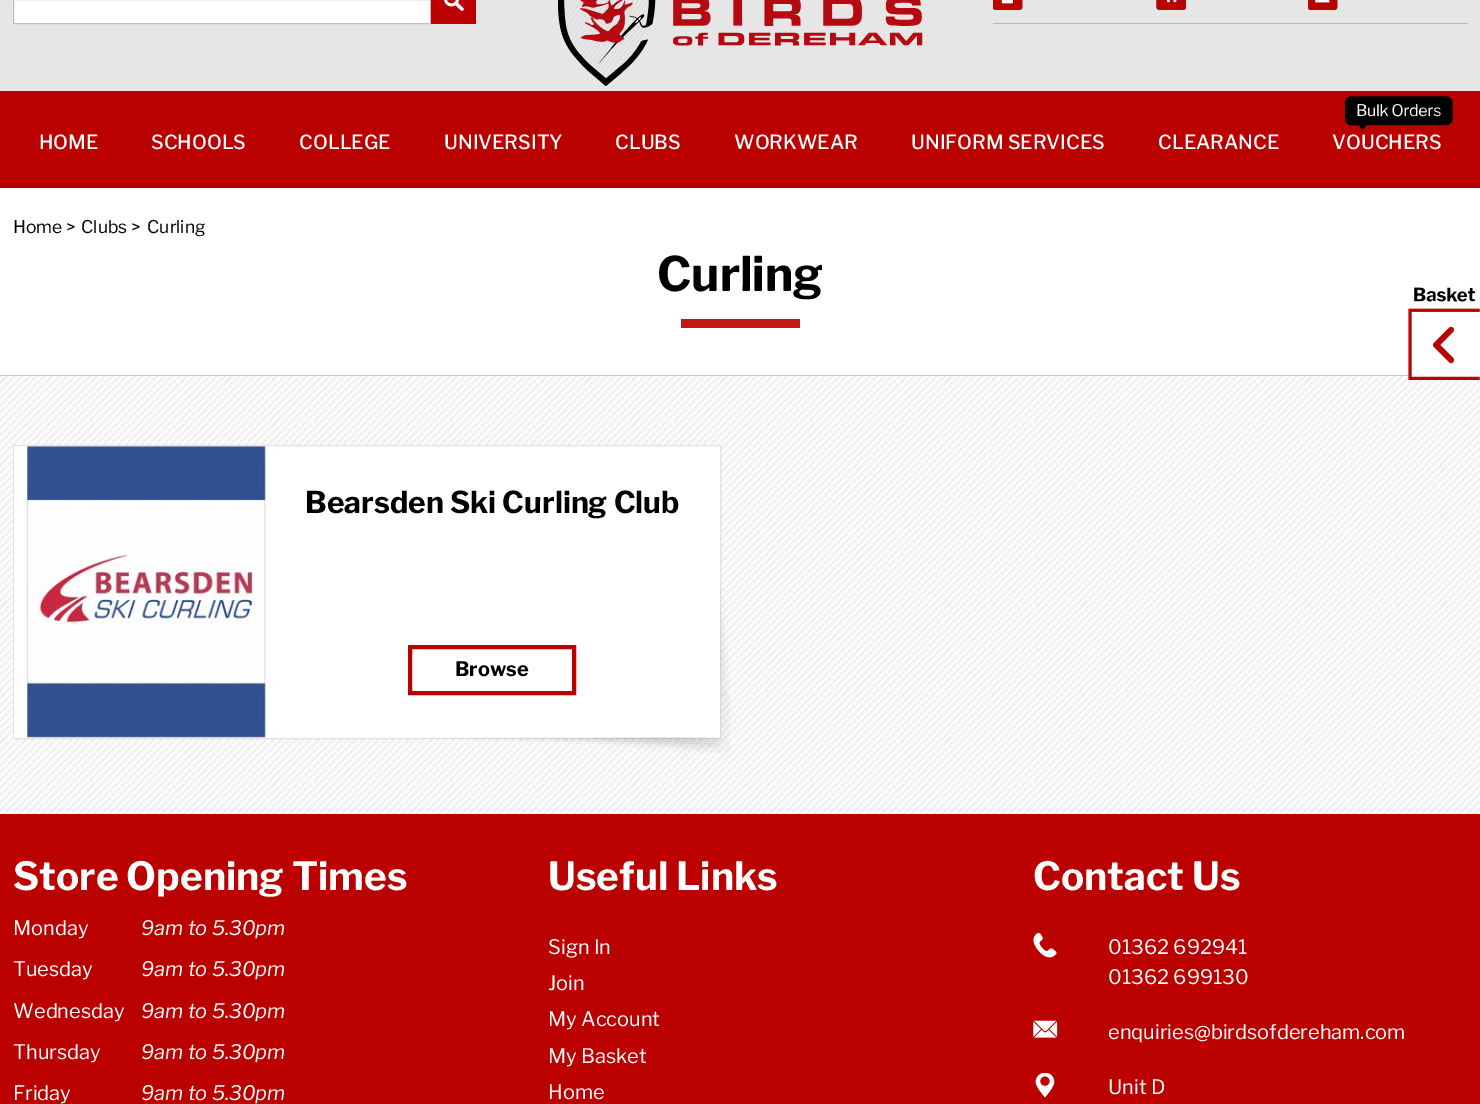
%!PS
<< /PageSize [1480 1104] >> setpagedevice
/picture { 5 dict begin { /h /w /y /x /name } { exch def } forall
  gsave x y translate w h scale
  w h 8 [w 0 0 h 0 0] name (r) file false 3 colorimage grestore end } def
0 1104 translate 1 -1 scale
4 setmiterlimit
1 setgray
0 0 1480 1104 rectfill
0.898 0.902 0.898 setrgbcolor
0 0 1480 91 rectfill
1 setgray
newpath 13.5 -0.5 moveto 430.5 -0.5 lineto 430.5 23.5 lineto 13.5 23.5 lineto closepath gsave fill grestore
0.753 setgray
stroke
0.733 0 0 setrgbcolor
431 0 45 24 rectfill
(img1.rgb) 444 0 20 11 picture
(img2.rgb) 558 0 365 86 picture
0.729 0.725 0.722 setrgbcolor
993 23 475 1 rectfill
(img3.rgb) 993 0 30 10 picture
(img4.rgb) 1156 0 30 10 picture
(img5.rgb) 1308 0 30 10 picture
0.733 0 0 setrgbcolor
0 91 1480 97 rectfill
/LibreFranklin-Medium [19.4 0 0 -19.4 0 0] selectfont
1 setgray
39 149 moveto (HOME) show
151 149 moveto (SCHOOLS) show
299 149 moveto (COLLEGE) show
444 149 moveto (UNIVERSITY) show
615 149 moveto (CLUBS) show
734 149 moveto (WORKWEAR) show
911 149 moveto (UNIFORM SERVICES) show
1158 149 moveto (CLEARANCE) show
(img6.rgb) 1345 96 108 34 picture
1332 149 moveto (VOUCHERS) show
/LibreFranklin-Regular [17.5 0 0 -17.5 0 0] selectfont
0 setgray
13 233 moveto (Home >) show
81 233 moveto (Clubs >) show
147 233 moveto (Curling) show
/LibreFranklin-Bold [47.5 0 0 -47.5 0 0] selectfont
657 291 moveto (Curling) show
0.761 0.102 0.071 setrgbcolor
681 319 119 9 rectfill
(img7.rgb) 0 376 1480 438 picture
0.776 setgray
0 375 1480 1 rectfill
1 setgray
newpath 13.5 445.5 moveto 720.5 445.5 lineto 720.5 738.5 lineto 13.5 738.5 lineto closepath gsave fill grestore
0.886 setgray
stroke
(img8.rgb) 14 446 261 292 picture
/LibreFranklin-Bold [30 0 0 -30 0 0] selectfont
0 setgray
305 513 moveto (Bearsden Ski Curling Club) show
(img9.rgb) 423 588 307 165 picture
0.733 0 0 setrgbcolor
4 setlinewidth
410 647 164 46 rectstroke
/LibreFranklin-Bold [20 0 0 -20 0 0] selectfont
0 setgray
455 676 moveto (Browse) show
(img10.rgb) 1408 287 72 93 picture
0.733 0 0 setrgbcolor
0 814 1480 290 rectfill
/LibreFranklin-Bold [38.75 0 0 -38.75 0 0] selectfont
1 setgray
13 890 moveto (Store Opening Times) show
/LibreFranklin-Regular [20 0 0 -20 0 0] selectfont
13 935 moveto (Monday) show
/LibreFranklin-Italic [20 0 0 -20 0 0] selectfont
141 935 moveto (9am to 5.30pm) show
/LibreFranklin-Regular [20 0 0 -20 0 0] selectfont
13 976 moveto (Tuesday) show
/LibreFranklin-Italic [20 0 0 -20 0 0] selectfont
141 976 moveto (9am to 5.30pm) show
/LibreFranklin-Regular [20 0 0 -20 0 0] selectfont
13 1018 moveto (Wednesday) show
/LibreFranklin-Italic [20 0 0 -20 0 0] selectfont
141 1018 moveto (9am to 5.30pm) show
/LibreFranklin-Regular [20 0 0 -20 0 0] selectfont
13 1059 moveto (Thursday) show
/LibreFranklin-Italic [20 0 0 -20 0 0] selectfont
141 1059 moveto (9am to 5.30pm) show
/LibreFranklin-Regular [20 0 0 -20 0 0] selectfont
13 1100 moveto (Friday) show
/LibreFranklin-Italic [20 0 0 -20 0 0] selectfont
141 1100 moveto (9am to 5.30pm) show
/LibreFranklin-Bold [38.75 0 0 -38.75 0 0] selectfont
548 890 moveto (Useful Links) show
/LibreFranklin-Regular [20 0 0 -20 0 0] selectfont
548 954 moveto (Sign In) show
548 990 moveto (Join) show
548 1026 moveto (My Account) show
548 1063 moveto (My Basket) show
548 1099 moveto (Home) show
/LibreFranklin-Bold [38.75 0 0 -38.75 0 0] selectfont
1033 890 moveto (Contact Us) show
(img11.rgb) 1033 933 24 25 picture
/LibreFranklin-Regular [20 0 0 -20 0 0] selectfont
1108 954 moveto (01362 692941) show
1108 984 moveto (01362 699130) show
(img12.rgb) 1033 1020 25 18 picture
1108 1039 moveto (enquiries@birdsofdereham.com) show
(img13.rgb) 1035 1073 20 25 picture
1108 1094 moveto (Unit D) show
showpage
